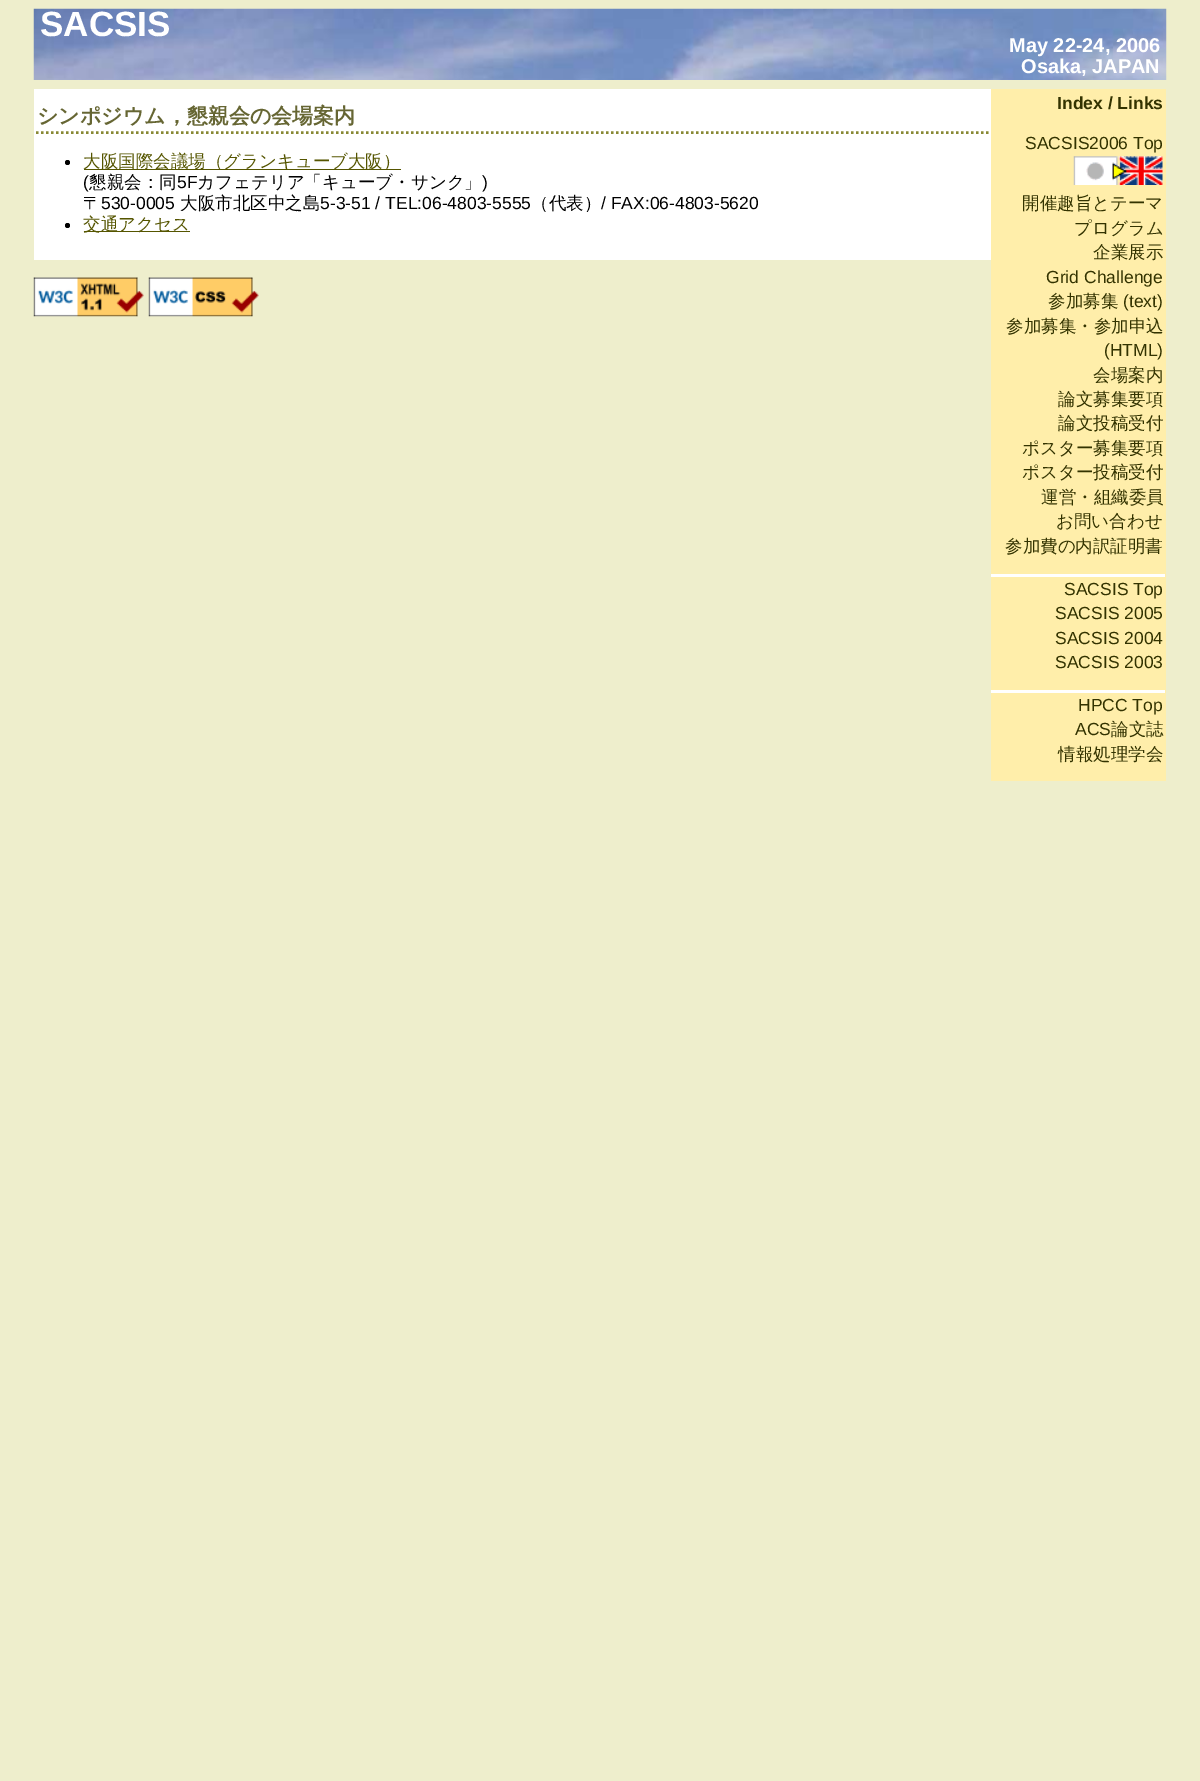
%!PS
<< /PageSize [1200 1781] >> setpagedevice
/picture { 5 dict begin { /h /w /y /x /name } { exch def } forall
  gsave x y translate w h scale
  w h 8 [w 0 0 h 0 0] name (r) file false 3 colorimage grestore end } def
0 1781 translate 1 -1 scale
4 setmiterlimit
0.933 0.933 0.8 setrgbcolor
0 0 1200 1781 rectfill
(img1.rgb) 33 8 1134 72 picture
/LiberationSans-Bold [35 0 0 -35 0 0] selectfont
1 setgray
40 36 moveto (SACSIS) show
/LiberationSans-Bold [20 0 0 -20 0 0] selectfont
1009 52 moveto (May 22-24, 2006) show
1021 73 moveto (Osaka, JAPAN) show
34 89 957 171 rectfill
0.533 0.533 0.2 setrgbcolor
2.5 setlinewidth
[2.5 2.5] 0 setdash
newpath 36 132.5 moveto 1164 132.5 lineto stroke
/WenQuanYiZenHei-Bold [21 0 0 -21 0 0] selectfont
0.4 0.4 0.2 setrgbcolor
37 123 moveto (シンポジウム，懇親会の会場案内) show
0 setgray
newpath 67.5 162.5 2.5 0 360 arc closepath fill
0.333 0.333 0 setrgbcolor
84 169 317 1 rectfill
/WenQuanYiZenHei-Medium [17.5 0 0 -17.5 0 0] selectfont
83 167 moveto (大阪国際会議場（グランキューブ大阪）) show
/LiberationSans-Regular [17.5 0 0 -17.5 0 0] selectfont
0 setgray
83 188 moveto (\() show
/WenQuanYiZenHei-Medium [17.5 0 0 -17.5 0 0] selectfont
89 188 moveto (懇親会：同) show
/LiberationSans-Regular [17.5 0 0 -17.5 0 0] selectfont
177 188 moveto (5F) show
/WenQuanYiZenHei-Medium [17.5 0 0 -17.5 0 0] selectfont
197 188 moveto (カフェテリア「キューブ・サンク」) show
/LiberationSans-Regular [17.5 0 0 -17.5 0 0] selectfont
482 188 moveto (\)) show
/WenQuanYiZenHei-Medium [17.5 0 0 -17.5 0 0] selectfont
83 209 moveto (〒) show
/LiberationSans-Regular [17.5 0 0 -17.5 0 0] selectfont
101 209 moveto (530-0005) show
/WenQuanYiZenHei-Medium [17.5 0 0 -17.5 0 0] selectfont
180 209 moveto (大阪市北区中之島) show
/LiberationSans-Regular [17.5 0 0 -17.5 0 0] selectfont
320 209 moveto (5-3-51 / TEL:06-4803-5555) show
/WenQuanYiZenHei-Medium [17.5 0 0 -17.5 0 0] selectfont
531 209 moveto (（代表）) show
/LiberationSans-Regular [17.5 0 0 -17.5 0 0] selectfont
601 209 moveto (/ FAX:06-4803-5620) show
newpath 67.5 225.5 2.5 0 360 arc closepath fill
0.333 0.333 0 setrgbcolor
84 231 106 1 rectfill
/WenQuanYiZenHei-Medium [17.5 0 0 -17.5 0 0] selectfont
83 230 moveto (交通アクセス) show
1 0.933 0.667 setrgbcolor
991 89 175 692 rectfill
/LiberationSans-Bold [17.5 0 0 -17.5 0 0] selectfont
0.2 0.2 0 setrgbcolor
1057 109 moveto (Index / Links) show
/LiberationSans-Regular [17.5 0 0 -17.5 0 0] selectfont
1025 149 moveto (SACSIS2006 Top) show
(img2.rgb) 1073 156 90 29 picture
/WenQuanYiZenHei-Medium [17.5 0 0 -17.5 0 0] selectfont
1022 209 moveto (開催趣旨とテーマ) show
1074 234 moveto (プログラム) show
1093 258 moveto (企業展示) show
/LiberationSans-Regular [17.5 0 0 -17.5 0 0] selectfont
1046 283 moveto (Grid Challenge) show
/WenQuanYiZenHei-Medium [17.5 0 0 -17.5 0 0] selectfont
1048 307 moveto (参加募集) show
/LiberationSans-Regular [17.5 0 0 -17.5 0 0] selectfont
1123 307 moveto (\(text\)) show
/WenQuanYiZenHei-Medium [17.5 0 0 -17.5 0 0] selectfont
1006 332 moveto (参加募集・参加申込) show
/LiberationSans-Regular [17.5 0 0 -17.5 0 0] selectfont
1104 356 moveto (\(HTML\)) show
/WenQuanYiZenHei-Medium [17.5 0 0 -17.5 0 0] selectfont
1093 381 moveto (会場案内) show
1058 405 moveto (論文募集要項) show
1058 429 moveto (論文投稿受付) show
1022 454 moveto (ポスター募集要項) show
1022 478 moveto (ポスター投稿受付) show
1041 503 moveto (運営・組織委員) show
1056 527 moveto (お問い合わせ) show
1005 552 moveto (参加費の内訳証明書) show
1 setgray
991 574 174 3 rectfill
/LiberationSans-Regular [17.5 0 0 -17.5 0 0] selectfont
0.2 0.2 0 setrgbcolor
1064 595 moveto (SACSIS Top) show
1055 619 moveto (SACSIS 2005) show
1055 644 moveto (SACSIS 2004) show
1055 668 moveto (SACSIS 2003) show
1 setgray
991 690 174 3 rectfill
0.2 0.2 0 setrgbcolor
1078 711 moveto (HPCC Top) show
1075 735 moveto (ACS) show
/WenQuanYiZenHei-Medium [17.5 0 0 -17.5 0 0] selectfont
1111 735 moveto (論文誌) show
1058 760 moveto (情報処理学会) show
(img3.rgb) 33 277 111 40 picture
(img4.rgb) 148 277 111 40 picture
showpage
